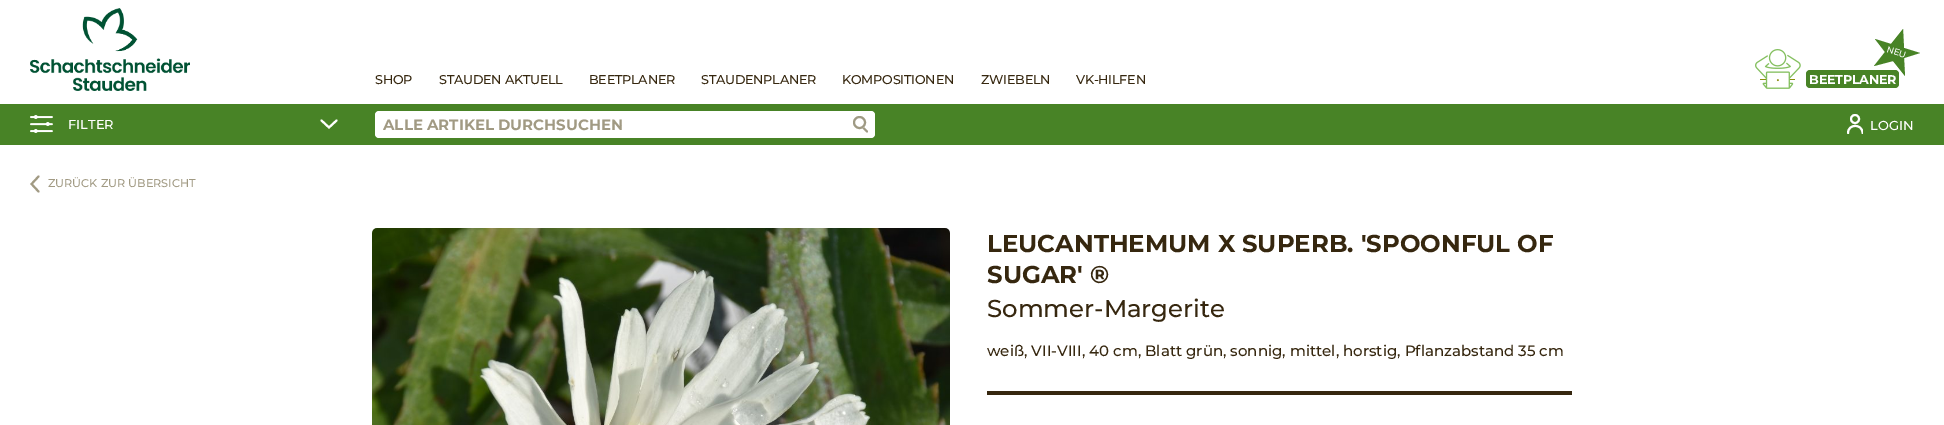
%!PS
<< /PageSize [1944 425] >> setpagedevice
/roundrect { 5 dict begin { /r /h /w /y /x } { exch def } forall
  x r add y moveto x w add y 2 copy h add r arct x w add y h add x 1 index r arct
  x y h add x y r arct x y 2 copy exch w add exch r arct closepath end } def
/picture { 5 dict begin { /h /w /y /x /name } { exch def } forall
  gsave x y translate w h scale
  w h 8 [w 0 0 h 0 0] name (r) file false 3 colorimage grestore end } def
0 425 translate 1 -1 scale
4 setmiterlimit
1 setgray
0 0 1944 425 rectfill
(img1.rgb) 30 8 160 83 picture
/Montserrat-Thin [12.75 0 0 -12.75 0 0] selectfont
0.212 0.153 0.059 setrgbcolor
375 84 moveto -0.25 0 (SHOP) ashow
439 84 moveto -0.25 0 (STAUDEN AKTUELL) ashow
589 84 moveto -0.25 0 (BEETPLANER) ashow
701 84 moveto -0.25 0 (STAUDENPLANER) ashow
842 84 moveto -0.25 0 (KOMPOSITIONEN) ashow
981 84 moveto -0.25 0 (ZWIEBELN) ashow
1076 84 moveto -0.25 0 (VK-HILFEN) ashow
(img2.rgb) 1755 49 46 40 picture
0.282 0.514 0.149 setrgbcolor
1806 70 93 18 4 roundrect fill
/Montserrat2-Thin [12.75 0 0 -12.75 0 0] selectfont
1 setgray
1809 84 moveto -0.25 0 (BEETPLANER) ashow
0.282 0.514 0.149 setrgbcolor
newpath 1903 29 moveto 1904 48 lineto 1920 53 lineto 1904 58 lineto 1905 76 lineto 1893 61 lineto 1874 66 lineto 1885 52 lineto 1875 39 lineto 1891 44 lineto closepath fill
/Montserrat-Thin [9 0 0 -9 0 0] selectfont
1 setgray
gsave 1886 52 translate 17 rotate 0 0 moveto -0.25 0 (NEU) ashow grestore
0.282 0.514 0.149 setrgbcolor
0 104 1944 41 rectfill
(img3.rgb) 30 115 23 18 picture
/Montserrat-Thin [13 0 0 -13 0 0] selectfont
1 setgray
68 129 moveto (FILTER) show
2 setlinewidth
1 setlinecap
newpath 321.5 120.5 moveto 329 127.5 lineto 336.5 120.5 lineto stroke
375 111 500 27 4 roundrect fill
/Montserrat2-Thin [15 0 0 -15 0 0] selectfont
0.631 0.604 0.514 setrgbcolor
383 130 moveto (ALLE ARTIKEL DURCHSUCHEN) show
0.624 0.604 0.518 setrgbcolor
newpath 862.5 127 moveto 867 131.5 lineto stroke
1 setgray
newpath 859.5 122.5 6.5 0 360 arc closepath fill
0.624 0.604 0.518 setrgbcolor
0 setlinecap
newpath 859.5 122.5 5.5 0 360 arc closepath stroke
1 setgray
newpath 1855 119 4 0 360 arc closepath stroke
gsave
1847 114 16 20 rectclip
1 setlinecap
1 setlinejoin
newpath 1848 133 moveto 1848 123.5 1862.5 123.5 1862.5 133 curveto stroke
grestore
/Montserrat-Thin [13 0 0 -13 0 0] selectfont
1870 130 moveto (LOGIN) show
0.631 0.604 0.514 setrgbcolor
1 setlinecap
newpath 38.5 191.5 moveto 31.5 184 lineto 38.5 176.5 lineto stroke
/Montserrat-Thin [11.25 0 0 -11.25 0 0] selectfont
48 187 moveto (ZURÜCK ZUR ÜBERSICHT) show
(img4.rgb) 372 228 578 197 picture
/Montserrat2-Thin [24.4 0 0 -24.4 0 0] selectfont
0.212 0.153 0.059 setrgbcolor
987 252 moveto (LEUCANTHEMUM X SUPERB. 'SPOONFUL OF) show
987 283 moveto (SUGAR' ®) show
/Montserrat-Thin [24.4 0 0 -24.4 0 0] selectfont
987 317 moveto (Sommer-Margerite) show
/Montserrat-Thin [15 0 0 -15 0 0] selectfont
987 356 moveto (weiß, VII-VIII, 40 cm, Blatt grün, sonnig, mittel, horstig, Pflanzabstand 35 cm) show
987 391 585 4 rectfill
showpage
